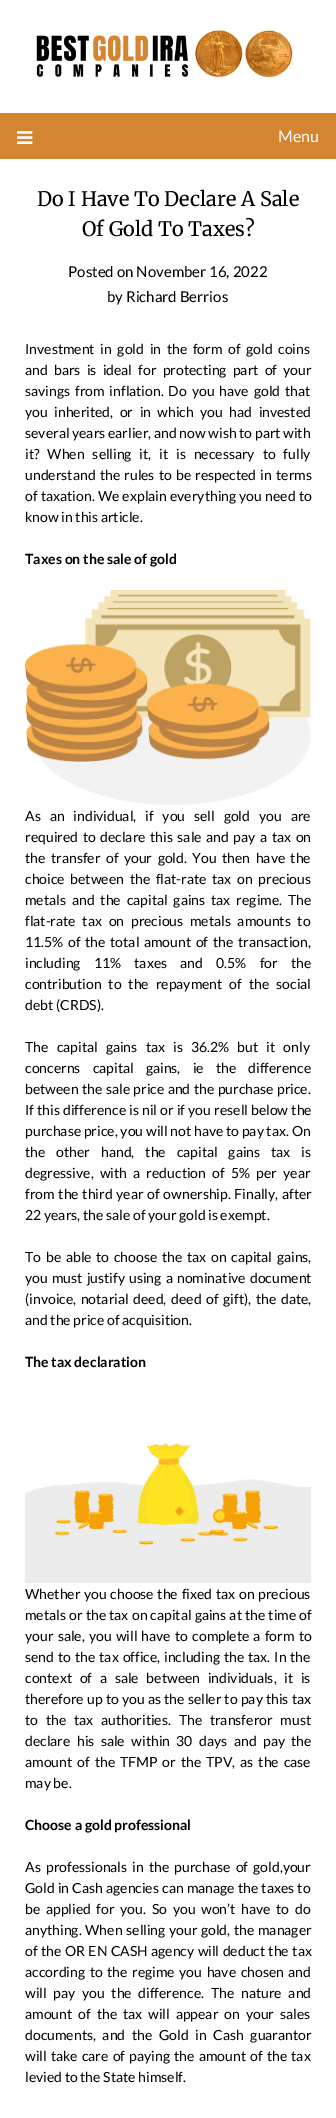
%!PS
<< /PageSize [336 2118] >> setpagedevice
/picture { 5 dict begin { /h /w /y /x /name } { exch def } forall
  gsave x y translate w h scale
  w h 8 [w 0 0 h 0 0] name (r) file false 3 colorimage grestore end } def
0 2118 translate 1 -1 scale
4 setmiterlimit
1 setgray
0 0 336 2118 rectfill
(img1.rgb) 36 30 257 48 picture
0.831 0.522 0.188 setrgbcolor
0 113 336 46 rectfill
(img2.rgb) 17 131 16 13 picture
/Lato-Regular [16 0 0 -16 0 0] selectfont
1 setgray
278 142 moveto (Menu) show
/Merriweather-Regular [20 0 0 -20 0 0] selectfont
0 setgray
37 206 moveto (Do I Have To Declare A Sale) show
82 236 moveto (Of Gold To Taxes?) show
/Lato-Regular [15 0 0 -15 0 0] selectfont
68 277 moveto (Posted on November 16, 2022) show
107 302 moveto (by Richard Berrios) show
/Lato-Regular [14 0 0 -14 0 0] selectfont
25 354 moveto 3 0 32 (Investment in gold in the form of gold coins) widthshow
25 375 moveto 3.5 0 32 (and bars is ideal for protecting part of your) widthshow
25 396 moveto 2.25 0 32 (savings from inflation. Do you have gold that) widthshow
25 417 moveto 3.75 0 32 (you inherited, or in which you had invested) widthshow
25 438 moveto (several years earlier, and now wish to part with) show
25 459 moveto 5.25 0 32 (it? When selling it, it is necessary to fully) widthshow
25 480 moveto 1.5 0 32 (understand the rules to be respected in terms) widthshow
25 501 moveto 0.5 0 32 (of taxation. We explain everything you need to) widthshow
25 522 moveto (know in this article.) show
/Lato-Bold [14 0 0 -14 0 0] selectfont
25 564 moveto (Taxes on the sale of gold) show
(img3.rgb) 25 590 286 215 picture
/Lato-Regular [14 0 0 -14 0 0] selectfont
25 821 moveto 6.25 0 32 (As an individual, if you sell gold you are) widthshow
25 842 moveto 1.9 0 32 (required to declare this sale and pay a tax on) widthshow
25 863 moveto 2.75 0 32 (the transfer of your gold. You then have the) widthshow
25 884 moveto 3 0 32 (choice between the flat-rate tax on precious) widthshow
25 905 moveto 3.25 0 32 (metals and the capital gains tax regime. The) widthshow
25 926 moveto 4 0 32 (flat-rate tax on precious metals amounts to) widthshow
25 947 moveto 2 0 32 (11.5% of the total amount of the transaction,) widthshow
25 968 moveto 10.5 0 32 (including 11% taxes and 0.5% for the) widthshow
25 989 moveto 4.25 0 32 (contribution to the repayment of the social) widthshow
25 1010 moveto (debt \(CRDS\).) show
25 1052 moveto 5.5 0 32 (The capital gains tax is 36.2% but it only) widthshow
25 1073 moveto 9.5 0 32 (concerns capital gains, ie the difference) widthshow
25 1094 moveto 0.75 0 32 (between the sale price and the purchase price.) widthshow
25 1115 moveto 0.5 0 32 (If this difference is nil or if you resell below the) widthshow
25 1136 moveto 0.1 0 32 (purchase price, you will not have to pay tax. On) widthshow
25 1157 moveto 8.25 0 32 (the other hand, the capital gains tax is) widthshow
25 1178 moveto 3.5 0 32 (degressive, with a reduction of 5% per year) widthshow
25 1199 moveto 1 0 32 (from the third year of ownership. Finally, after) widthshow
25 1220 moveto (22 years, the sale of your gold is exempt.) show
25 1262 moveto 2 0 32 (To be able to choose the tax on capital gains,) widthshow
25 1283 moveto 1.5 0 32 (you must justify using a nominative document) widthshow
25 1304 moveto 2 0 32 (\(invoice, notarial deed, deed of gift\), the date,) widthshow
25 1325 moveto (and the price of acquisition.) show
/Lato-Bold [14 0 0 -14 0 0] selectfont
25 1367 moveto (The tax declaration) show
(img4.rgb) 25 1443 286 140 picture
/Lato-Regular [14 0 0 -14 0 0] selectfont
25 1599 moveto 1 0 32 (Whether you choose the fixed tax on precious) widthshow
25 1620 moveto 0.5 0 32 (metals or the tax on capital gains at the time of) widthshow
25 1641 moveto 1.5 0 32 (your sale, you will have to complete a form to) widthshow
25 1662 moveto 1.25 0 32 (send to the tax office, including the tax. In the) widthshow
25 1683 moveto 5 0 32 (context of a sale between individuals, it is) widthshow
25 1704 moveto 0.5 0 32 (therefore up to you as the seller to pay this tax) widthshow
25 1725 moveto 5 0 32 (to the tax authorities. The transferor must) widthshow
25 1746 moveto 3.75 0 32 (declare his sale within 30 days and pay the) widthshow
25 1767 moveto 2.25 0 32 (amount of the TFMP or the TPV, as the case) widthshow
25 1788 moveto (may be.) show
/Lato-Bold [14 0 0 -14 0 0] selectfont
25 1830 moveto (Choose a gold professional) show
/Lato-Regular [14 0 0 -14 0 0] selectfont
25 1872 moveto 2.5 0 32 (As professionals in the purchase of gold,your) widthshow
25 1893 moveto 0.5 0 32 (Gold in Cash agencies can manage the taxes to) widthshow
25 1914 moveto 3 0 32 (be applied for you. So you won’t have to do) widthshow
25 1935 moveto 1 0 32 (anything. When selling your gold, the manager) widthshow
25 1956 moveto 0.75 0 32 (of the OR EN CASH agency will deduct the tax) widthshow
25 1977 moveto 1.9 0 32 (according to the regime you have chosen and) widthshow
25 1998 moveto 4 0 32 (will pay you the difference. The nature and) widthshow
25 2019 moveto 3.25 0 32 (amount of the tax will appear on your sales) widthshow
25 2040 moveto 4 0 32 (documents, and the Gold in Cash guarantor) widthshow
25 2061 moveto 1.5 0 32 (will take care of paying the amount of the tax) widthshow
25 2082 moveto (levied to the State himself.) show
showpage
